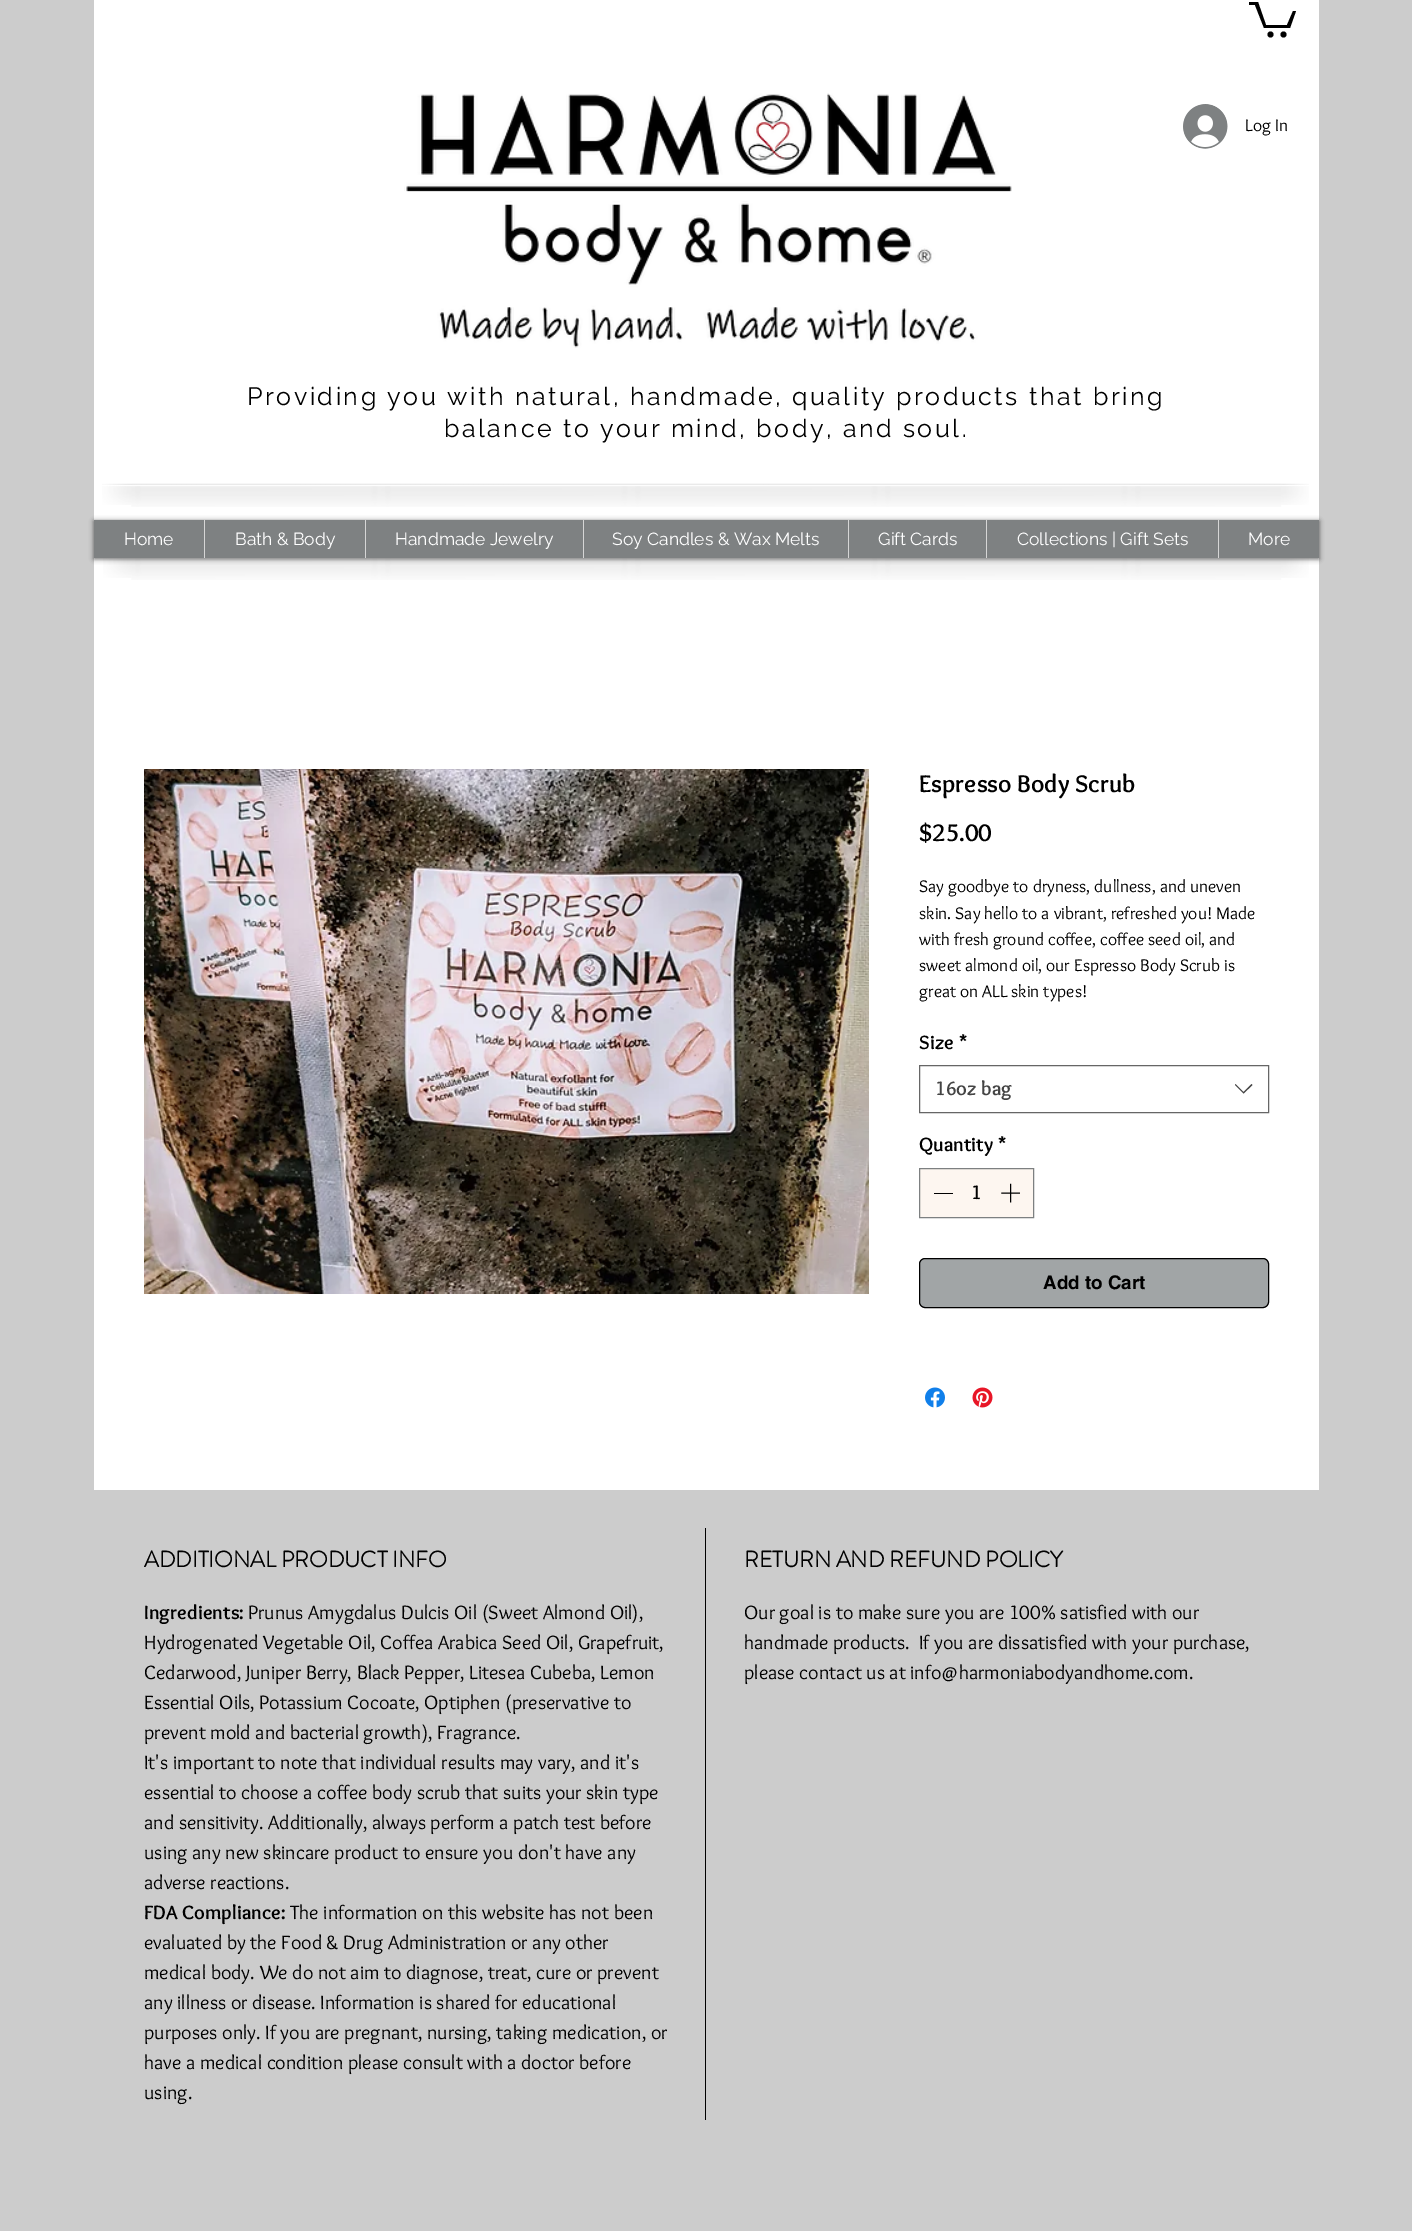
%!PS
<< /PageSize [1412 2231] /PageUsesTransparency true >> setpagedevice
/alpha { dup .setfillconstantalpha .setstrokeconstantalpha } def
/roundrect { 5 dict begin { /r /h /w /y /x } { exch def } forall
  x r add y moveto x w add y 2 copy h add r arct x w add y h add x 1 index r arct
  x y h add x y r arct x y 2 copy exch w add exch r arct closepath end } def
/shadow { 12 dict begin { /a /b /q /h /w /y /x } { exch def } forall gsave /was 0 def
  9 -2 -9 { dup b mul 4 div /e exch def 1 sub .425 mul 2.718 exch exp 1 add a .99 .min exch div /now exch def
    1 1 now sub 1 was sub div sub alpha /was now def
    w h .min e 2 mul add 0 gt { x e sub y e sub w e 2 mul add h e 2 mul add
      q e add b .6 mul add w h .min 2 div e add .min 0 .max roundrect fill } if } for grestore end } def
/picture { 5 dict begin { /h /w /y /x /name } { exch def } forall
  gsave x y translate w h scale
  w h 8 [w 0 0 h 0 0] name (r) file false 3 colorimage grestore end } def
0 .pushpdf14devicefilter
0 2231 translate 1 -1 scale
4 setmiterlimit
0.8 setgray
0 0 1412 2231 rectfill
1 setgray
94 0 1225 1490 rectfill
0 setgray
newpath 1296 11 moveto 1290 28 lineto 1264 28 lineto 1255 5 lineto 1249 5 lineto 1249 2 lineto 1258 2 lineto 1266 25 lineto 1287 25 lineto 1293 11 lineto fill
newpath 1283.5 34.5 3 0 360 arc closepath fill
newpath 1270.5 34.5 3 0 360 arc closepath fill
(img1.rgb) 404 93 608 255 picture
(img2.rgb) 1183 104 45 45 picture
/Overlock-Regular [17.5 0 0 -17.5 0 0] selectfont
1245 131 moveto (Log In) show
/Raleway-Regular [25 0 0 -25 0 0] selectfont
247 405 moveto 2.5 0 (Providing you with natural, handmade, quality products that bring) ashow
444 437 moveto 2.5 0 (balance to your mind, body, and soul.) ashow
(img4.rgb) 131 483 1151 24 picture
(img3.rgb) 102 483 30 22 picture
(img5.rgb) 1281 483 28 22 picture
(img7.rgb) 131 558 1151 22 picture
(img6.rgb) 103 558 29 20 picture
(img8.rgb) 1281 558 28 20 picture
94 521 1225 38 0 2.5 0.6 shadow
0.494 0.506 0.51 setrgbcolor
94 520 1225 38 rectfill
/Raleway-Regular [17.5 0 0 -17.5 0 0] selectfont
1 setgray
124 545 moveto (Home) show
0.839 setgray
204 520 1 38 rectfill
1 setgray
235 545 moveto (Bath & Body) show
0.839 setgray
365 520 1 38 rectfill
1 setgray
395 545 moveto (Handmade Jewelry) show
0.839 setgray
583 520 1 38 rectfill
1 setgray
612 545 moveto (Soy Candles & Wax Melts) show
0.839 setgray
848 520 1 38 rectfill
1 setgray
878 545 moveto (Gift Cards) show
0.839 setgray
986 520 1 38 rectfill
1 setgray
1017 545 moveto (Collections | Gift Sets) show
0.839 setgray
1218 520 1 38 rectfill
1 setgray
1248 545 moveto (More) show
(img9.rgb) 144 769 725 525 picture
/Overlock-Bold [25 0 0 -25 0 0] selectfont
0 setgray
919 792 moveto (Espresso Body Scrub) show
919 841 moveto ($25.00) show
/Overlock-Regular [17.5 0 0 -17.5 0 0] selectfont
919 892 moveto (Say goodbye to dryness, dullness, and uneven) show
919 919 moveto (skin. Say hello to a vibrant, refreshed you! Made) show
919 945 moveto (with fresh ground coffee, coffee seed oil, and) show
919 971 moveto (sweet almond oil, our Espresso Body Scrub is) show
919 997 moveto (great on ALL skin types!) show
/Overlock-Bold [20 0 0 -20 0 0] selectfont
919 1049 moveto (Size) show
959 1049 moveto (*) show
0.4 setgray
919.5 1065.5 349 47 rectstroke
0.267 setgray
935 1095 moveto (16oz bag) show
newpath 1251.5 1084 moveto 1252.5 1085 lineto 1243.5 1093.5 lineto 1235 1085 lineto 1235.5 1084 lineto 1243.5 1092 lineto closepath eofill
0 setgray
919 1151 moveto (Quantity) show
998 1151 moveto (*) show
0.992 0.965 0.941 setrgbcolor
newpath 919.5 1168.5 moveto 1033.5 1168.5 lineto 1033.5 1217.5 lineto 919.5 1217.5 lineto closepath gsave fill grestore
0.49 0.502 0.506 setrgbcolor
stroke
0 setgray
934 1193 19 1 rectfill
971 1199 moveto (1) show
(img10.rgb) 1001 1183 19 20 picture
0.631 0.647 0.651 setrgbcolor
919.5 1258.5 349 49 5.5 roundrect gsave fill grestore
0 setgray
stroke
/helvetica-Bold [18.75 0 0 -18.75 0 0] selectfont
1043 1289 moveto (Add to Cart) show
(img11.rgb) 925 1387 20 21 picture
(img12.rgb) 972 1387 21 21 picture
705 1528 1 592 rectfill
/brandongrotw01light-Bold [22.5 0 0 -22.5 0 0] selectfont
144 1567 moveto (ADDITIONAL PRODUCT INFO) show
/Overlock-Bold [20 0 0 -20 0 0] selectfont
144 1619 moveto (Ingredients:) show
/Overlock-Regular [20 0 0 -20 0 0] selectfont
248 1619 moveto (Prunus Amygdalus Dulcis Oil \(Sweet Almond Oil\),) show
144 1649 moveto (Hydrogenated Vegetable Oil, Coffea Arabica Seed Oil, Grapefruit,) show
144 1679 moveto (Cedarwood, Juniper Berry, Black Pepper, Litesea Cubeba, Lemon) show
144 1709 moveto (Essential Oils, Potassium Cocoate, Optiphen \(preservative to) show
144 1739 moveto (prevent mold and bacterial growth\), Fragrance.) show
144 1769 moveto (It's important to note that individual results may vary, and it's) show
144 1799 moveto (essential to choose a coffee body scrub that suits your skin type) show
144 1829 moveto (and sensitivity. Additionally, always perform a patch test before) show
144 1859 moveto (using any new skincare product to ensure you don't have any) show
144 1889 moveto (adverse reactions.) show
/Overlock-Bold [20 0 0 -20 0 0] selectfont
144 1919 moveto (FDA Compliance:) show
/Overlock-Regular [20 0 0 -20 0 0] selectfont
290 1919 moveto (The information on this website has not been) show
144 1949 moveto (evaluated by the Food & Drug Administration or any other) show
144 1979 moveto (medical body. We do not aim to diagnose, treat, cure or prevent) show
144 2009 moveto (any illness or disease. Information is shared for educational) show
144 2039 moveto (purposes only. If you are pregnant, nursing, taking medication, or) show
144 2069 moveto (have a medical condition please consult with a doctor before) show
144 2099 moveto (using.) show
/brandongrotw01light-Bold [22.5 0 0 -22.5 0 0] selectfont
744 1567 moveto (RETURN AND REFUND POLICY) show
/Overlock-Regular [20 0 0 -20 0 0] selectfont
744 1619 moveto (Our goal is to make sure you are 100% satisfied with our) show
744 1649 moveto (handmade products.  If you are dissatisfied with your purchase,) show
744 1679 moveto (please contact us at info@harmoniabodyandhome.com.) show
.poppdf14devicefilter showpage
